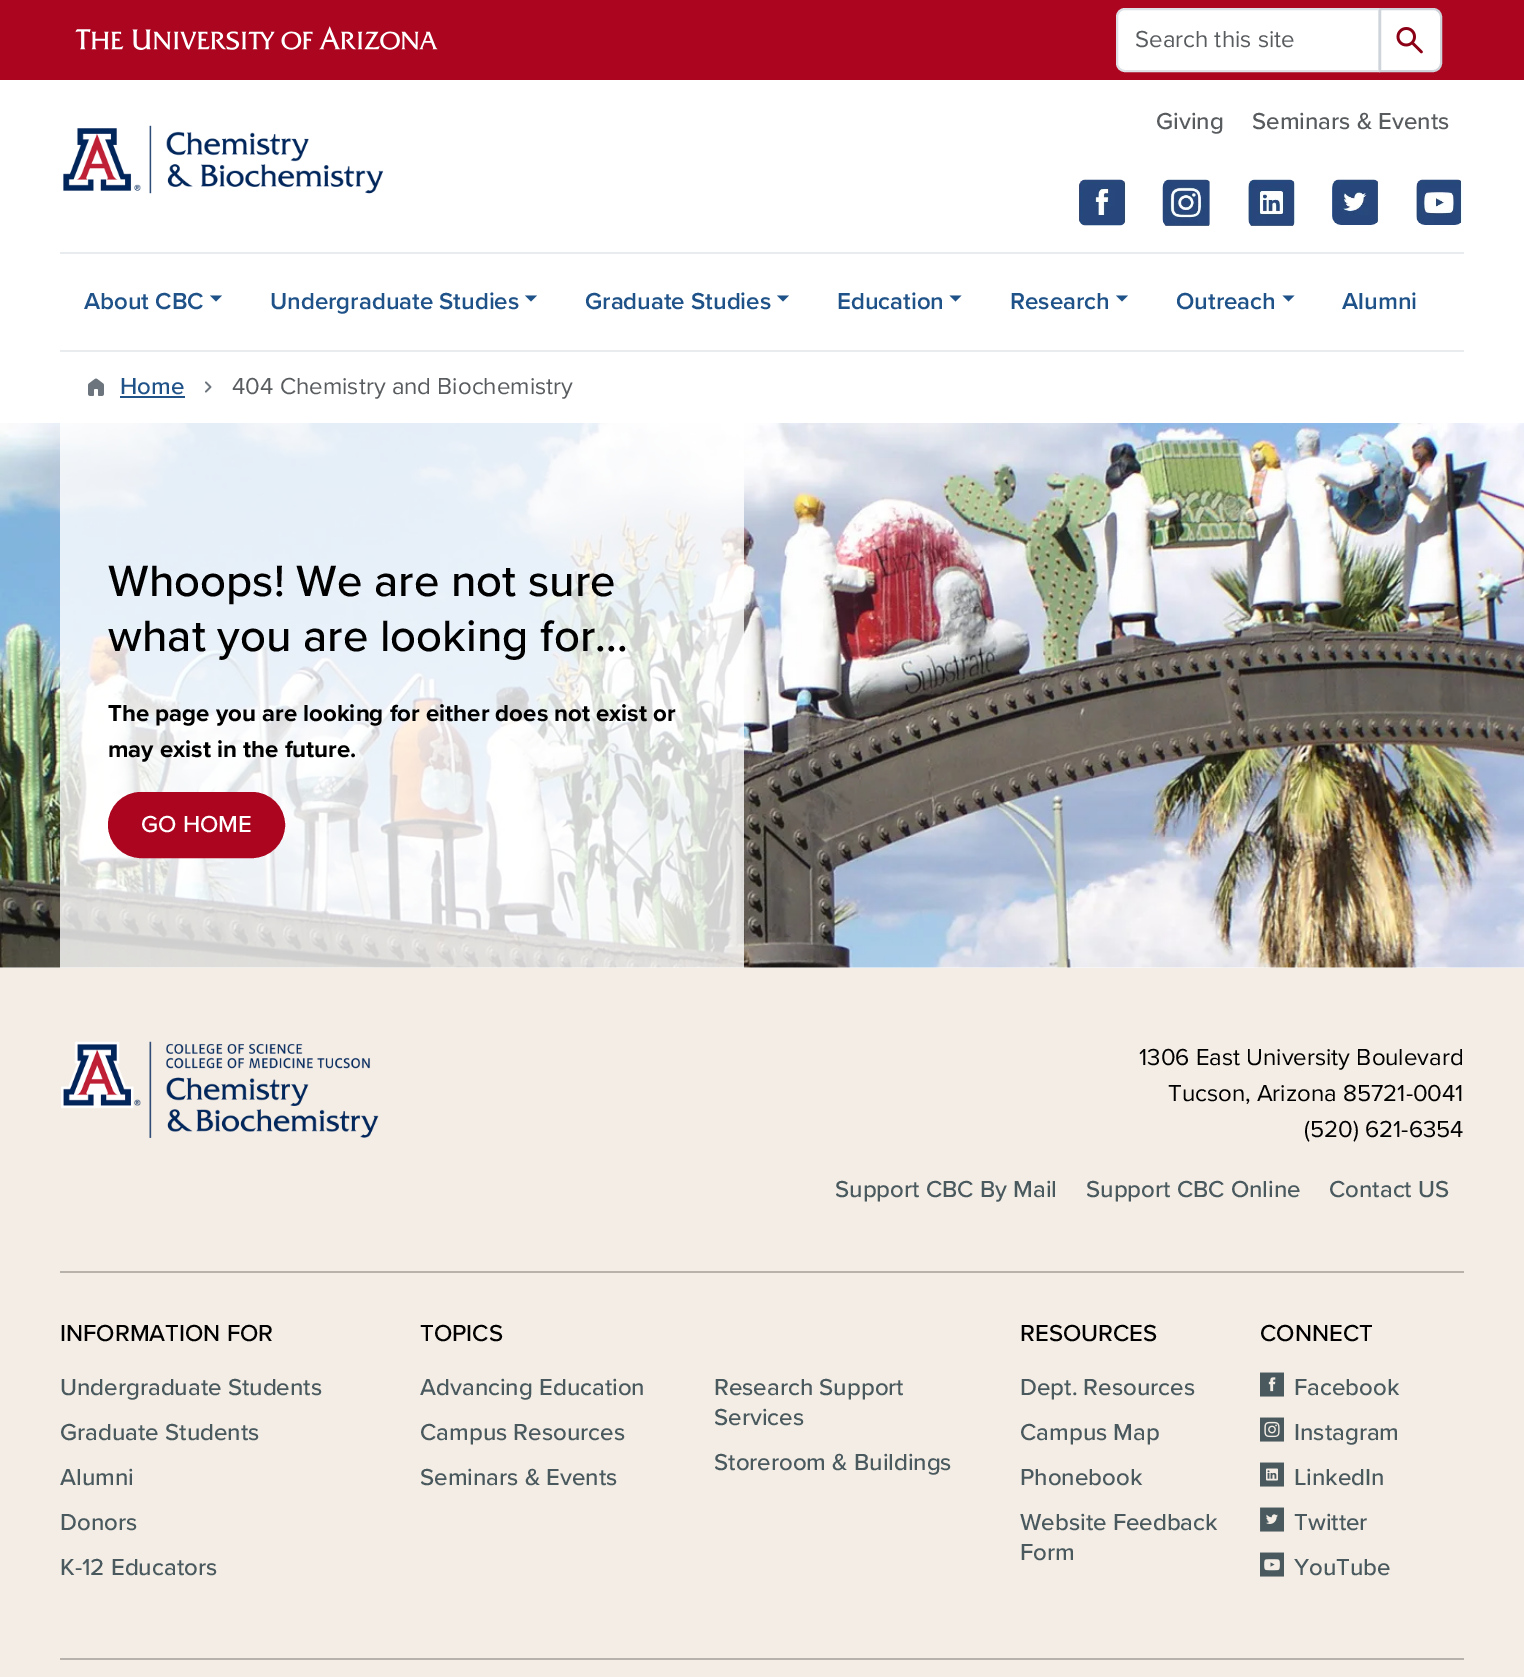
%!PS
<< /PageSize [1524 1677] /PageUsesTransparency true >> setpagedevice
/alpha { dup .setfillconstantalpha .setstrokeconstantalpha } def
/roundrect { 5 dict begin { /r /h /w /y /x } { exch def } forall
  x r add y moveto x w add y 2 copy h add r arct x w add y h add x 1 index r arct
  x y h add x y r arct x y 2 copy exch w add exch r arct closepath end } def
/picture { 5 dict begin { /h /w /y /x /name } { exch def } forall
  gsave x y translate w h scale
  w h 8 [w 0 0 h 0 0] name (r) file false 3 colorimage grestore end } def
0 .pushpdf14devicefilter
0 1677 translate 1 -1 scale
4 setmiterlimit
1 setgray
0 0 1524 1677 rectfill
0.671 0.02 0.125 setrgbcolor
0 0 1524 80 rectfill
(img1.rgb) 75 26 363 24 picture
1 setgray
newpath 1125 9 moveto 1379 9 lineto 1379 71 lineto 1125 71 lineto 1120.5 71 1117 67.5 1117 63 curveto 1117 17 lineto 1117 12.5 1120.5 9 1125 9 curveto closepath gsave fill grestore
0.871 0.886 0.902 setrgbcolor
2 setlinewidth
stroke
/ProximaNova-Regular [24 0 0 -24 0 0] selectfont
0.349 0.361 0.373 setrgbcolor
1135 47 moveto (Search this site) show
1 setgray
newpath 1380 9 moveto 1433 9 lineto 1437.5 9 1441 12.5 1441 17 curveto 1441 63 lineto 1441 67.5 1437.5 71 1433 71 curveto 1380 71 lineto closepath gsave fill grestore
0.808 0.831 0.855 setrgbcolor
stroke
(img2.rgb) 1396 27 27 27 picture
(img3.rgb) 63 125 321 69 picture
/ProximaNova-Medium [24 0 0 -24 0 0] selectfont
0.349 0.361 0.373 setrgbcolor
1156 129 moveto (Giving) show
1252 129 moveto (Seminars & Events) show
(img4.rgb) 1079 179 47 47 picture
(img5.rgb) 1162 179 48 47 picture
(img6.rgb) 1248 179 48 47 picture
(img7.rgb) 1332 179 47 46 picture
(img8.rgb) 1416 179 48 46 picture
0.914 0.925 0.937 setrgbcolor
60 252 1404 2 rectfill
60 350 1404 2 rectfill
/ProximaNova-SemiBold [24 0 0 -24 0 0] selectfont
0.118 0.322 0.533 setrgbcolor
84 309 moveto (About CBC) show
newpath 210 295.5 moveto 222 295.5 lineto 216 301.5 lineto closepath fill
270 309 moveto (Undergraduate Studies) show
newpath 525 295.5 moveto 537 295.5 lineto 531 301.5 lineto closepath fill
585 309 moveto (Graduate Studies) show
newpath 777 295.5 moveto 789 295.5 lineto 783 301.5 lineto closepath fill
837 309 moveto (Education) show
newpath 949.5 295.5 moveto 961.5 295.5 lineto 955.5 301.5 lineto closepath fill
1010 309 moveto (Research) show
newpath 1116 295.5 moveto 1128 295.5 lineto 1122 301.5 lineto closepath fill
1176 309 moveto (Outreach) show
newpath 1282.5 295.5 moveto 1294.5 295.5 lineto 1288.5 301.5 lineto closepath fill
1342 309 moveto (Alumni) show
(img9.rgb) 88 378 16 18 picture
/ProximaNova-Medium [24 0 0 -24 0 0] selectfont
120 394 moveto (Home) show
120 396 65 2 rectfill
(img10.rgb) 204 381 8 12 picture
/ProximaNova-Regular [24 0 0 -24 0 0] selectfont
0.349 0.361 0.373 setrgbcolor
232 394 moveto (404 Chemistry and Biochemistry) show
(img11.rgb) 0 423 1524 545 picture
0.8 alpha
1 setgray
60 423 684 545 rectfill
/ProximaNova-Medium [45.5 0 0 -45.5 0 0] selectfont
1 alpha
0 setgray
108 596 moveto (Whoops! We are not sure) show
108 651 moveto (what you are looking for...) show
/ProximaNova-Bold [24 0 0 -24 0 0] selectfont
108 721 moveto (The page you are looking for either does not exist or) show
108 757 moveto (may exist in the future.) show
0.671 0.02 0.125 setrgbcolor
109.5 793.5 174 63 31.5 roundrect gsave fill grestore
3 setlinewidth
stroke
/ProximaNova-Medium [24 0 0 -24 0 0] selectfont
1 setgray
141 832 moveto (GO HOME) show
0.957 0.929 0.898 setrgbcolor
0 968 1524 709 rectfill
(img12.rgb) 61 1041 318 97 picture
/ProximaNova-Regular [24 0 0 -24 0 0] selectfont
0 setgray
1139 1065 moveto (1306 East University Boulevard) show
1168 1101 moveto (Tucson, Arizona 85721-0041) show
1304 1137 moveto (\(520\) 621-6354) show
/ProximaNova-Medium [24 0 0 -24 0 0] selectfont
0.286 0.349 0.369 setrgbcolor
835 1197 moveto (Support CBC By Mail) show
1086 1197 moveto (Support CBC Online) show
1329 1197 moveto (Contact US) show
0.718 0.698 0.675 setrgbcolor
60 1271 1404 2 rectfill
0 setgray
60 1341 moveto (INFORMATION FOR) show
0.286 0.349 0.369 setrgbcolor
60 1395 moveto (Undergraduate Students) show
60 1440 moveto (Graduate Students) show
60 1485 moveto (Alumni) show
60 1530 moveto (Donors) show
60 1575 moveto (K-12 Educators) show
0 setgray
420 1341 moveto (TOPICS) show
0.286 0.349 0.369 setrgbcolor
420 1395 moveto (Advancing Education) show
714 1395 moveto (Research Support) show
714 1425 moveto (Services) show
420 1440 moveto (Campus Resources) show
714 1470 moveto (Storeroom & Buildings) show
420 1485 moveto (Seminars & Events) show
0 setgray
1020 1341 moveto (RESOURCES) show
0.286 0.349 0.369 setrgbcolor
1020 1395 moveto (Dept. Resources) show
1020 1440 moveto (Campus Map) show
1020 1485 moveto (Phonebook) show
1020 1530 moveto (Website Feedback) show
1020 1560 moveto (Form) show
0 setgray
1260 1341 moveto (CONNECT) show
(img13.rgb) 1260 1372 24 25 picture
0.286 0.349 0.369 setrgbcolor
1294 1395 moveto (Facebook) show
(img14.rgb) 1260 1417 24 25 picture
1294 1440 moveto (Instagram) show
(img15.rgb) 1260 1462 24 25 picture
1294 1485 moveto (LinkedIn) show
(img16.rgb) 1260 1507 24 25 picture
1294 1530 moveto (Twitter) show
(img17.rgb) 1260 1552 24 25 picture
1294 1575 moveto (YouTube) show
0.718 0.698 0.675 setrgbcolor
60 1658 1404 2 rectfill
.poppdf14devicefilter showpage
